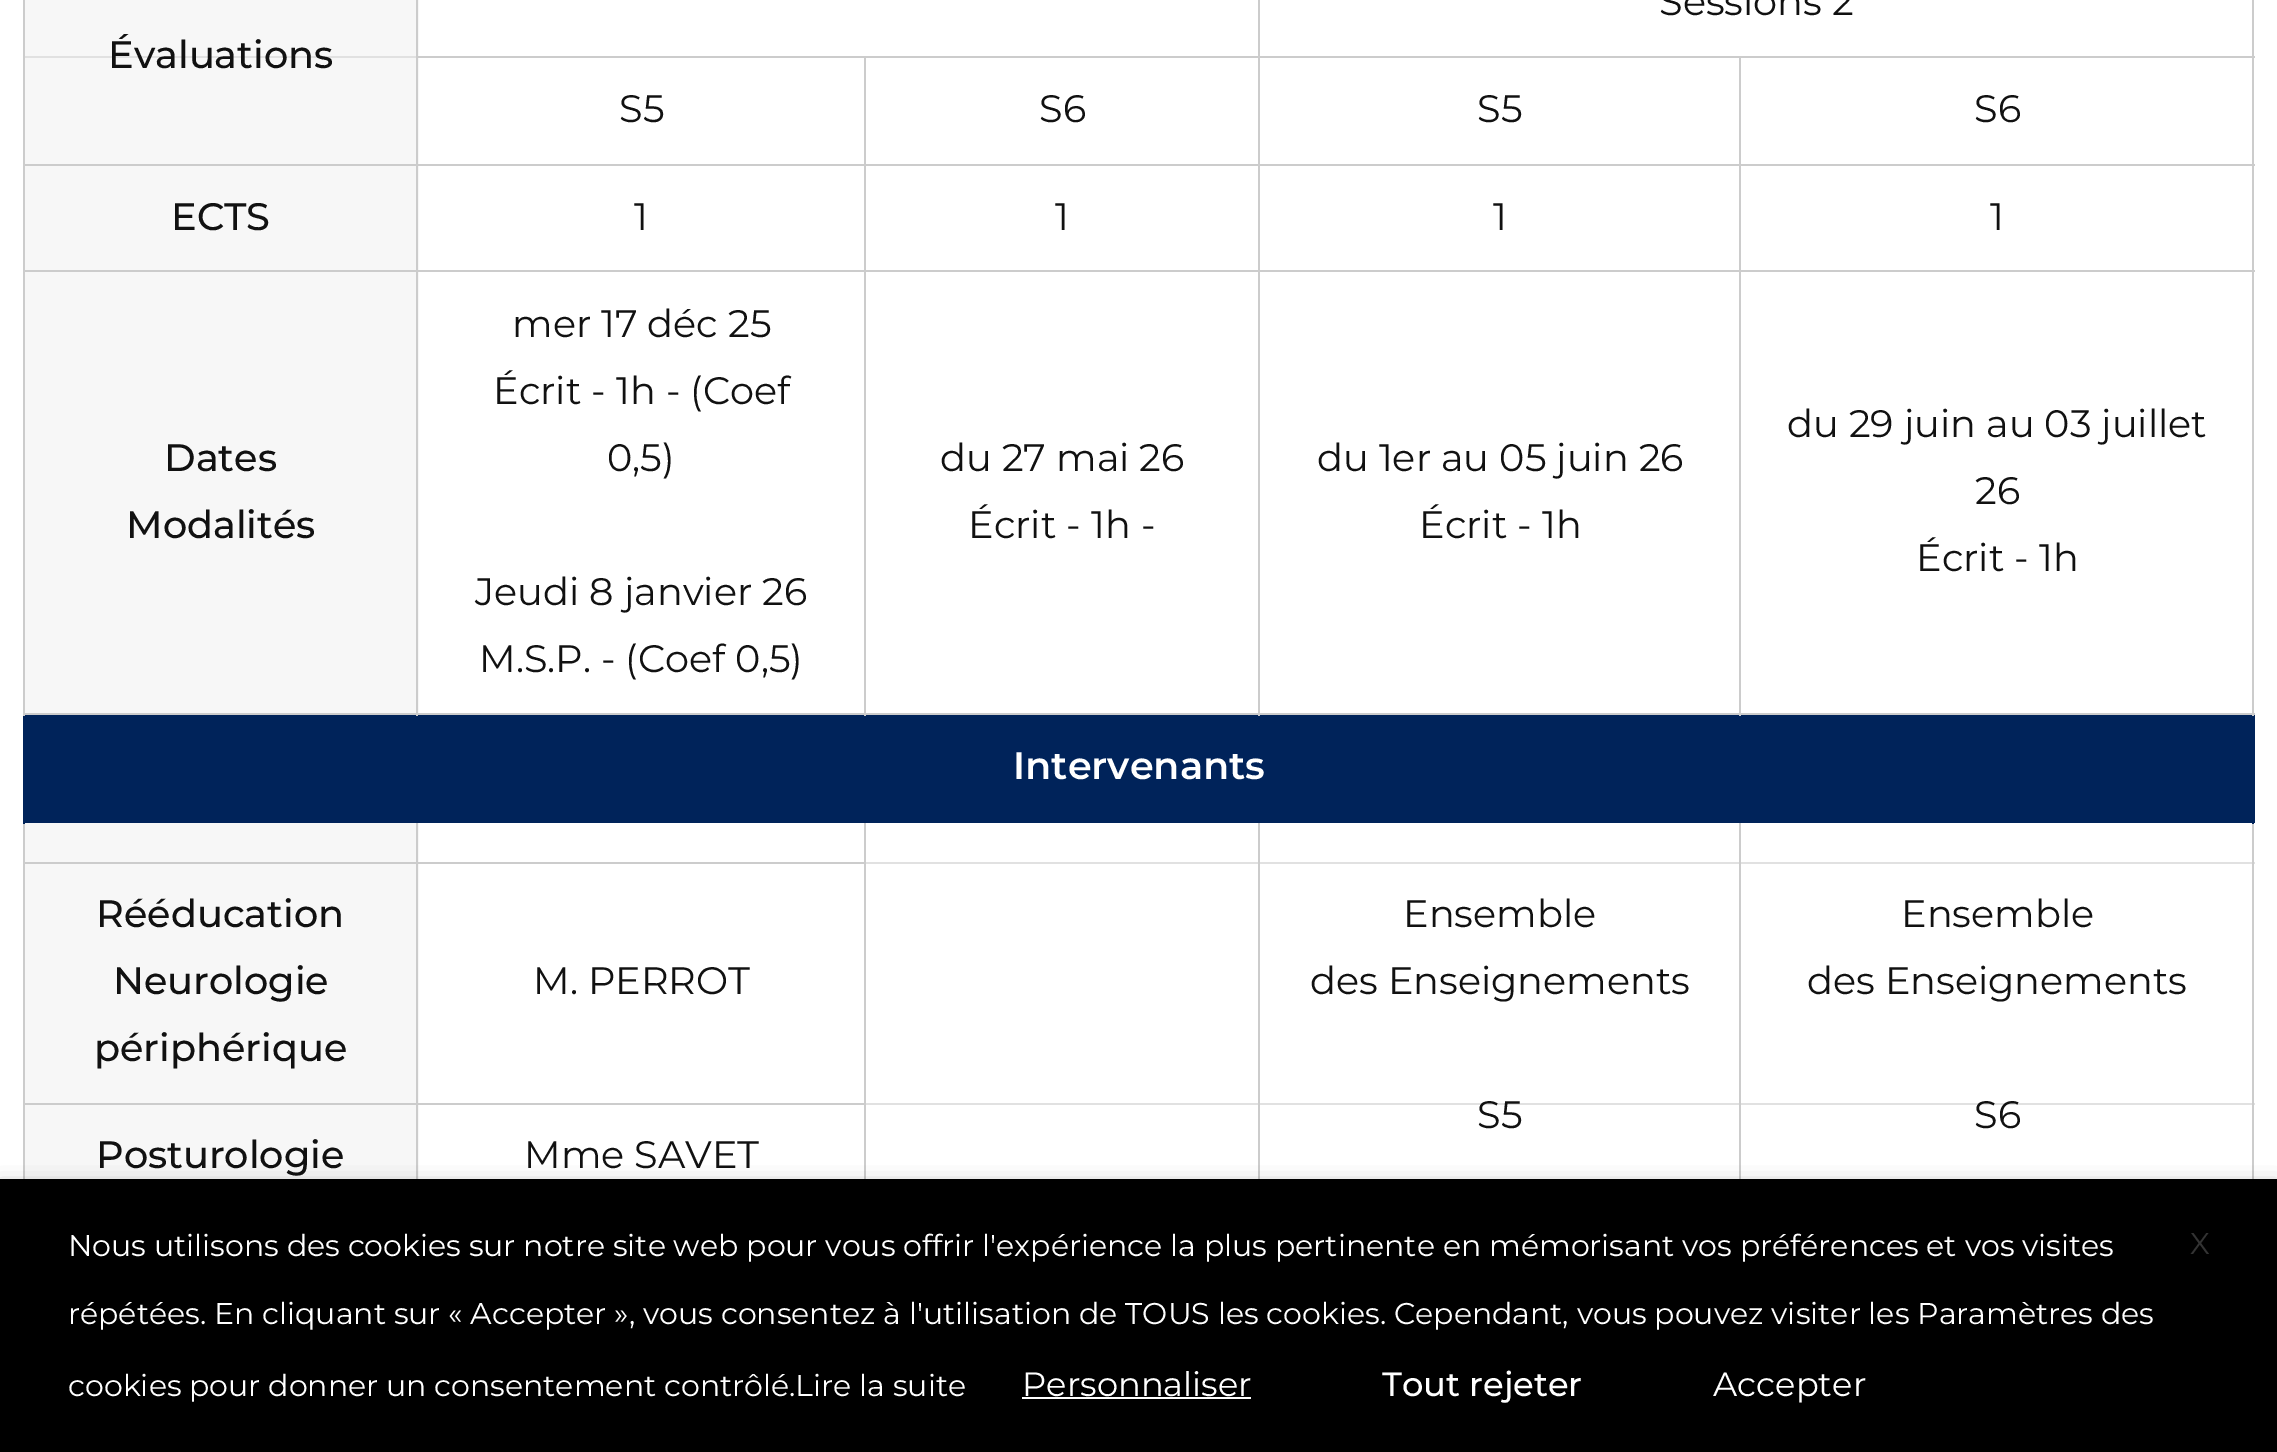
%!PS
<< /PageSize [2277 1452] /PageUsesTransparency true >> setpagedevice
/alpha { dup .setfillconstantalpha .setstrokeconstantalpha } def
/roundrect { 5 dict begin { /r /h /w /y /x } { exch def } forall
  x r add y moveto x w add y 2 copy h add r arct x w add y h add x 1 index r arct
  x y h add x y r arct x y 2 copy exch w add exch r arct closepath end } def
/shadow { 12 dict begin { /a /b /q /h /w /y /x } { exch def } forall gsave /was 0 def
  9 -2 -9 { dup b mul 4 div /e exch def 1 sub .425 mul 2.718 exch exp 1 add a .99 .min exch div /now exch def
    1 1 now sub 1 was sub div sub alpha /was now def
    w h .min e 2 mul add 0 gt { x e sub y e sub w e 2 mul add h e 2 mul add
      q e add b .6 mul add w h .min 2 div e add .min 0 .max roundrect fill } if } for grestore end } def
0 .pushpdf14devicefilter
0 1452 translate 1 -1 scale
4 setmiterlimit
1 setgray
0 0 2277 1452 rectfill
0.8 setgray
1739 56 516 2 rectfill
1739 164 516 2 rectfill
1739 270 516 2 rectfill
0 0.137 0.353 setrgbcolor
25 715 2230 106 rectfill
0.882 setgray
866 862 1389 2 rectfill
866 1103 1389 2 rectfill
0.8 setgray
2252 821 2 358 rectfill
0 0.137 0.353 setrgbcolor
2252 713 2 111 rectfill
0.8 setgray
2252 270 2 446 rectfill
1739 713 516 2 rectfill
1739 270 2 446 rectfill
1258 270 484 2 rectfill
1739 164 2 108 rectfill
1258 164 484 2 rectfill
1739 56 2 111 rectfill
1258 56 484 2 rectfill
1258 713 484 2 rectfill
1258 270 2 446 rectfill
864 270 396 2 rectfill
1258 164 2 108 rectfill
864 164 396 2 rectfill
1258 56 2 111 rectfill
864 56 396 2 rectfill
1258 0 2 59 rectfill
/Montserrat-Regular [38.25 0 0 -38.25 0 0] selectfont
0.067 setgray
1659 15 moveto (Sessions 2) show
0.969 setgray
25 0 394 164 rectfill
0.882 setgray
23 56 393 2 rectfill
/Montserrat-Medium [38.25 0 0 -38.25 0 0] selectfont
0.067 setgray
108 68 moveto (Évaluations) show
0.8 setgray
864 713 396 2 rectfill
864 270 2 446 rectfill
416 270 450 2 rectfill
864 164 2 108 rectfill
416 164 450 2 rectfill
864 56 2 111 rectfill
416 56 450 2 rectfill
0.969 setgray
25 166 394 104 rectfill
25 272 394 441 rectfill
0.8 setgray
416 713 450 2 rectfill
416 270 2 446 rectfill
23 270 396 2 rectfill
416 164 2 108 rectfill
23 164 396 2 rectfill
416 0 2 167 rectfill
/Montserrat-Regular [38.25 0 0 -38.25 0 0] selectfont
0.067 setgray
619 122 moveto (S5) show
1039 122 moveto (S6) show
1477 122 moveto (S5) show
0.8 setgray
2252 164 2 108 rectfill
2252 0 2 167 rectfill
0.067 setgray
1974 122 moveto (S6) show
0.8 setgray
416 862 450 2 rectfill
0.969 setgray
25 864 394 239 rectfill
0.8 setgray
416 1103 450 2 rectfill
0.969 setgray
25 1105 394 74 rectfill
0.8 setgray
416 1103 2 76 rectfill
23 1103 396 2 rectfill
416 862 2 243 rectfill
23 862 396 2 rectfill
23 1103 2 76 rectfill
23 821 2 284 rectfill
0.969 setgray
25 823 394 39 rectfill
0.8 setgray
416 821 2 43 rectfill
864 821 2 358 rectfill
1258 821 2 358 rectfill
1739 821 2 358 rectfill
0 0.137 0.353 setrgbcolor
23 821 2232 2 rectfill
23 713 2 111 rectfill
0.8 setgray
23 713 396 2 rectfill
23 270 2 446 rectfill
23 0 2 272 rectfill
/Montserrat-Medium [38.25 0 0 -38.25 0 0] selectfont
0.067 setgray
171 230 moveto (ECTS) show
/Montserrat-Regular [38.25 0 0 -38.25 0 0] selectfont
634 230 moveto (1) show
1055 230 moveto (1) show
1493 230 moveto (1) show
1990 230 moveto (1) show
/Montserrat-Medium [38.25 0 0 -38.25 0 0] selectfont
164 471 moveto (Dates) show
126 538 moveto (Modalités) show
/Montserrat-Regular [38.25 0 0 -38.25 0 0] selectfont
512 337 moveto (mer 17 déc 25) show
493 404 moveto (Écrit - 1h - \(Coef) show
607 471 moveto (0,5\)) show
475 605 moveto (Jeudi 8 janvier 26) show
479 672 moveto (M.S.P. - \(Coef 0,5\)) show
940 471 moveto (du 27 mai 26) show
968 538 moveto (Écrit - 1h -) show
1317 471 moveto (du 1er au 05 juin 26) show
1419 538 moveto (Écrit - 1h) show
1787 437 moveto (du 29 juin au 03 juillet) show
1975 504 moveto (26) show
1916 571 moveto (Écrit - 1h) show
/Montserrat-SemiBold [38.25 0 0 -38.25 0 0] selectfont
1 setgray
1013 779 moveto (Intervenants) show
/Montserrat-Medium [38.25 0 0 -38.25 0 0] selectfont
0.067 setgray
96 927 moveto (Rééducation) show
113 994 moveto (Neurologie) show
94 1061 moveto (périphérique) show
/Montserrat-Regular [38.25 0 0 -38.25 0 0] selectfont
533 994 moveto (M. PERROT) show
1403 927 moveto (Ensemble) show
1310 994 moveto (des Enseignements) show
1477 1128 moveto (S5) show
1901 927 moveto (Ensemble) show
1807 994 moveto (des Enseignements) show
1974 1128 moveto (S6) show
/Montserrat-Medium [38.25 0 0 -38.25 0 0] selectfont
96 1168 moveto (Posturologie) show
/Montserrat-Regular [38.25 0 0 -38.25 0 0] selectfont
524 1168 moveto (Mme SAVET) show
0 setgray
0 1190 2277 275 0 11 0.5 shadow
0 1179 2277 273 rectfill
/Montserrat-Regular [30 0 0 -30 0 0] selectfont
1 setgray
68 1256 moveto (Nous utilisons des cookies sur notre site web pour vous offrir l'expérience la plus pertinente en mémorisant vos préférences et vos visites) show
68 1324 moveto (répétées. En cliquant sur « Accepter », vous consentez à l'utilisation de TOUS les cookies. Cependant, vous pouvez visiter les Paramètres des) show
68 1396 moveto (cookies pour donner un consentement contrôlé.Lire la suite) show
/Montserrat-Regular [33.75 0 0 -33.75 0 0] selectfont
1022 1396 moveto (Personnaliser) show
1022 1397 229 2 rectfill
/Montserrat-Medium [33.75 0 0 -33.75 0 0] selectfont
1382 1396 moveto (Tout rejeter) show
/Montserrat-Regular [33.75 0 0 -33.75 0 0] selectfont
1713 1396 moveto (Accepter) show
/Montserrat-Regular [30 0 0 -30 0 0] selectfont
0.2 setgray
2190 1254 moveto (X) show
.poppdf14devicefilter showpage
